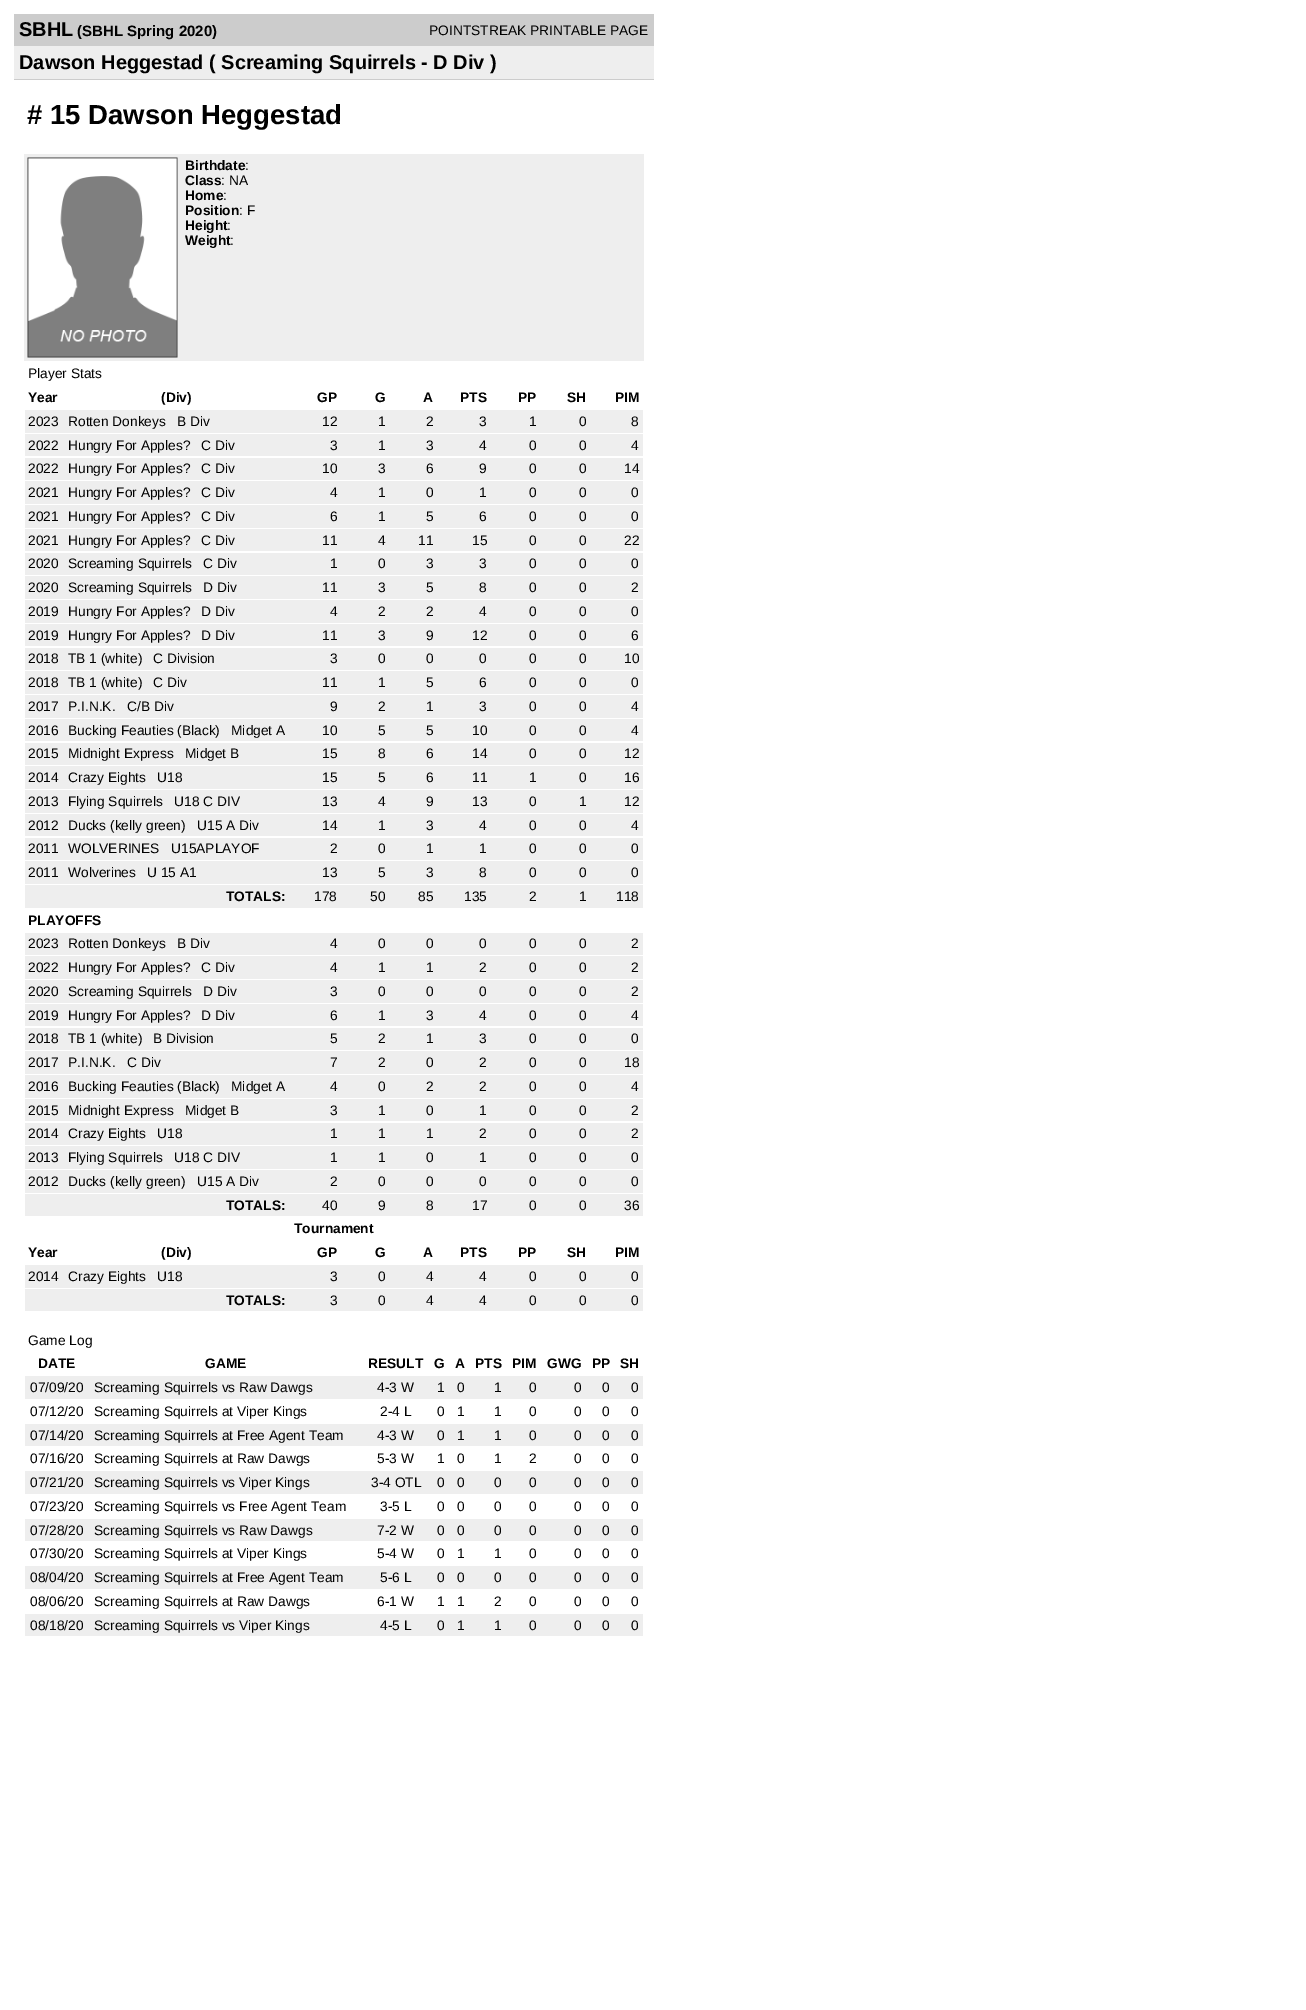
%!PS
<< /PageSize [1306 2010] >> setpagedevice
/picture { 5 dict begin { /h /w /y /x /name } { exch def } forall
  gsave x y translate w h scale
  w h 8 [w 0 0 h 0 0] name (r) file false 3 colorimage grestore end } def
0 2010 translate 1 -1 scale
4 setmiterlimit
1 setgray
0 0 1306 2010 rectfill
0.8 setgray
14 14 640 32 rectfill
/LiberationSans-Bold [20 0 0 -20 0 0] selectfont
0 setgray
19 36 moveto (SBHL) show
/LiberationSans-Bold [15 0 0 -15 0 0] selectfont
77 36 moveto (\(SBHL Spring 2020\)) show
/LiberationSans-Regular [13.75 0 0 -13.75 0 0] selectfont
429 35 moveto (POINTSTREAK PRINTABLE PAGE) show
0.933 setgray
14 46 640 33 rectfill
/LiberationSans-Bold [20 0 0 -20 0 0] selectfont
0 setgray
19 69 moveto (Dawson Heggestad \( Screaming Squirrels - D Div \)) show
0.8 setgray
14 79 640 1 rectfill
/LiberationSans-Bold [27.5 0 0 -27.5 0 0] selectfont
0 setgray
27 124 moveto (# 15 Dawson Heggestad) show
0.933 setgray
24 154 620 207 rectfill
(img1.rgb) 27 157 151 201 picture
/LiberationSans-Bold [13.75 0 0 -13.75 0 0] selectfont
0 setgray
185 170 moveto (Birthdate) show
/LiberationSans-Regular [13.75 0 0 -13.75 0 0] selectfont
245 170 moveto (:) show
/LiberationSans-Bold [13.75 0 0 -13.75 0 0] selectfont
185 185 moveto (Class) show
/LiberationSans-Regular [13.75 0 0 -13.75 0 0] selectfont
221 185 moveto (: NA) show
/LiberationSans-Bold [13.75 0 0 -13.75 0 0] selectfont
185 200 moveto (Home) show
/LiberationSans-Regular [13.75 0 0 -13.75 0 0] selectfont
223 200 moveto (:) show
/LiberationSans-Bold [13.75 0 0 -13.75 0 0] selectfont
185 215 moveto (Position) show
/LiberationSans-Regular [13.75 0 0 -13.75 0 0] selectfont
239 215 moveto (: F) show
/LiberationSans-Bold [13.75 0 0 -13.75 0 0] selectfont
185 230 moveto (Height) show
/LiberationSans-Regular [13.75 0 0 -13.75 0 0] selectfont
227 230 moveto (:) show
/LiberationSans-Bold [13.75 0 0 -13.75 0 0] selectfont
185 245 moveto (Weight) show
/LiberationSans-Regular [13.75 0 0 -13.75 0 0] selectfont
230 245 moveto (:) show
28 378 moveto (Player Stats) show
/LiberationSans-Bold [13.75 0 0 -13.75 0 0] selectfont
28 402 moveto (Year) show
161 402 moveto (\(Div\)) show
317 402 moveto (GP) show
375 402 moveto (G) show
423 402 moveto (A) show
460 402 moveto (PTS) show
518 402 moveto (PP) show
567 402 moveto (SH) show
615 402 moveto (PIM) show
0.933 setgray
25 410 618 23 rectfill
/LiberationSans-Regular [13.75 0 0 -13.75 0 0] selectfont
0 setgray
28 426 moveto (2023) show
68 426 moveto (Rotten Donkeys) show
177 426 moveto (B Div) show
322 426 moveto (12) show
378 426 moveto (1) show
426 426 moveto (2) show
479 426 moveto (3) show
529 426 moveto (1) show
579 426 moveto (0) show
631 426 moveto (8) show
0.933 setgray
25 434 618 22 rectfill
0 setgray
28 450 moveto (2022) show
68 450 moveto (Hungry For Apples?) show
201 450 moveto (C Div) show
330 450 moveto (3) show
378 450 moveto (1) show
426 450 moveto (3) show
479 450 moveto (4) show
529 450 moveto (0) show
579 450 moveto (0) show
631 450 moveto (4) show
0.933 setgray
25 458 618 22 rectfill
0 setgray
28 473 moveto (2022) show
68 473 moveto (Hungry For Apples?) show
201 473 moveto (C Div) show
322 473 moveto (10) show
378 473 moveto (3) show
426 473 moveto (6) show
479 473 moveto (9) show
529 473 moveto (0) show
579 473 moveto (0) show
624 473 moveto (14) show
0.933 setgray
25 481 618 23 rectfill
0 setgray
28 497 moveto (2021) show
68 497 moveto (Hungry For Apples?) show
201 497 moveto (C Div) show
330 497 moveto (4) show
378 497 moveto (1) show
426 497 moveto (0) show
479 497 moveto (1) show
529 497 moveto (0) show
579 497 moveto (0) show
631 497 moveto (0) show
0.933 setgray
25 505 618 23 rectfill
0 setgray
28 521 moveto (2021) show
68 521 moveto (Hungry For Apples?) show
201 521 moveto (C Div) show
330 521 moveto (6) show
378 521 moveto (1) show
426 521 moveto (5) show
479 521 moveto (6) show
529 521 moveto (0) show
579 521 moveto (0) show
631 521 moveto (0) show
0.933 setgray
25 529 618 22 rectfill
0 setgray
28 545 moveto (2021) show
68 545 moveto (Hungry For Apples?) show
201 545 moveto (C Div) show
322 545 moveto (11) show
378 545 moveto (4) show
418 545 moveto (11) show
472 545 moveto (15) show
529 545 moveto (0) show
579 545 moveto (0) show
624 545 moveto (22) show
0.933 setgray
25 553 618 22 rectfill
0 setgray
28 568 moveto (2020) show
68 568 moveto (Screaming Squirrels) show
203 568 moveto (C Div) show
330 568 moveto (1) show
378 568 moveto (0) show
426 568 moveto (3) show
479 568 moveto (3) show
529 568 moveto (0) show
579 568 moveto (0) show
631 568 moveto (0) show
0.933 setgray
25 576 618 23 rectfill
0 setgray
28 592 moveto (2020) show
68 592 moveto (Screaming Squirrels) show
203 592 moveto (D Div) show
322 592 moveto (11) show
378 592 moveto (3) show
426 592 moveto (5) show
479 592 moveto (8) show
529 592 moveto (0) show
579 592 moveto (0) show
631 592 moveto (2) show
0.933 setgray
25 600 618 23 rectfill
0 setgray
28 616 moveto (2019) show
68 616 moveto (Hungry For Apples?) show
201 616 moveto (D Div) show
330 616 moveto (4) show
378 616 moveto (2) show
426 616 moveto (2) show
479 616 moveto (4) show
529 616 moveto (0) show
579 616 moveto (0) show
631 616 moveto (0) show
0.933 setgray
25 624 618 22 rectfill
0 setgray
28 640 moveto (2019) show
68 640 moveto (Hungry For Apples?) show
201 640 moveto (D Div) show
322 640 moveto (11) show
378 640 moveto (3) show
426 640 moveto (9) show
472 640 moveto (12) show
529 640 moveto (0) show
579 640 moveto (0) show
631 640 moveto (6) show
0.933 setgray
25 648 618 22 rectfill
0 setgray
28 663 moveto (2018) show
68 663 moveto (TB 1 \(white\)) show
153 663 moveto (C Division) show
330 663 moveto (3) show
378 663 moveto (0) show
426 663 moveto (0) show
479 663 moveto (0) show
529 663 moveto (0) show
579 663 moveto (0) show
624 663 moveto (10) show
0.933 setgray
25 671 618 23 rectfill
0 setgray
28 687 moveto (2018) show
68 687 moveto (TB 1 \(white\)) show
153 687 moveto (C Div) show
322 687 moveto (11) show
378 687 moveto (1) show
426 687 moveto (5) show
479 687 moveto (6) show
529 687 moveto (0) show
579 687 moveto (0) show
631 687 moveto (0) show
0.933 setgray
25 695 618 23 rectfill
0 setgray
28 711 moveto (2017) show
68 711 moveto (P.I.N.K.) show
127 711 moveto (C/B Div) show
330 711 moveto (9) show
378 711 moveto (2) show
426 711 moveto (1) show
479 711 moveto (3) show
529 711 moveto (0) show
579 711 moveto (0) show
631 711 moveto (4) show
0.933 setgray
25 719 618 22 rectfill
0 setgray
28 735 moveto (2016) show
68 735 moveto (Bucking Feauties \(Black\)) show
231 735 moveto (Midget A) show
322 735 moveto (10) show
378 735 moveto (5) show
426 735 moveto (5) show
472 735 moveto (10) show
529 735 moveto (0) show
579 735 moveto (0) show
631 735 moveto (4) show
0.933 setgray
25 743 618 22 rectfill
0 setgray
28 758 moveto (2015) show
68 758 moveto (Midnight Express) show
185 758 moveto (Midget B) show
322 758 moveto (15) show
378 758 moveto (8) show
426 758 moveto (6) show
472 758 moveto (14) show
529 758 moveto (0) show
579 758 moveto (0) show
624 758 moveto (12) show
0.933 setgray
25 766 618 23 rectfill
0 setgray
28 782 moveto (2014) show
68 782 moveto (Crazy Eights) show
157 782 moveto (U18) show
322 782 moveto (15) show
378 782 moveto (5) show
426 782 moveto (6) show
472 782 moveto (11) show
529 782 moveto (1) show
579 782 moveto (0) show
624 782 moveto (16) show
0.933 setgray
25 790 618 23 rectfill
0 setgray
28 806 moveto (2013) show
68 806 moveto (Flying Squirrels) show
174 806 moveto (U18 C DIV) show
322 806 moveto (13) show
378 806 moveto (4) show
426 806 moveto (9) show
472 806 moveto (13) show
529 806 moveto (0) show
579 806 moveto (1) show
624 806 moveto (12) show
0.933 setgray
25 814 618 22 rectfill
0 setgray
28 830 moveto (2012) show
68 830 moveto (Ducks \(kelly green\)) show
197 830 moveto (U15 A Div) show
322 830 moveto (14) show
378 830 moveto (1) show
426 830 moveto (3) show
479 830 moveto (4) show
529 830 moveto (0) show
579 830 moveto (0) show
631 830 moveto (4) show
0.933 setgray
25 838 618 22 rectfill
0 setgray
28 853 moveto (2011) show
68 853 moveto (WOLVERINES) show
171 853 moveto (U15APLAYOF) show
330 853 moveto (2) show
378 853 moveto (0) show
426 853 moveto (1) show
479 853 moveto (1) show
529 853 moveto (0) show
579 853 moveto (0) show
631 853 moveto (0) show
0.933 setgray
25 861 618 23 rectfill
0 setgray
28 877 moveto (2011) show
68 877 moveto (Wolverines) show
147 877 moveto (U 15 A1) show
322 877 moveto (13) show
378 877 moveto (5) show
426 877 moveto (3) show
479 877 moveto (8) show
529 877 moveto (0) show
579 877 moveto (0) show
631 877 moveto (0) show
0.933 setgray
25 885 618 23 rectfill
/LiberationSans-Bold [13.75 0 0 -13.75 0 0] selectfont
0 setgray
226 901 moveto (TOTALS:) show
/LiberationSans-Regular [13.75 0 0 -13.75 0 0] selectfont
314 901 moveto (178) show
370 901 moveto (50) show
418 901 moveto (85) show
464 901 moveto (135) show
529 901 moveto (2) show
579 901 moveto (1) show
616 901 moveto (118) show
/LiberationSans-Bold [13.75 0 0 -13.75 0 0] selectfont
28 925 moveto (PLAYOFFS) show
0.933 setgray
25 933 618 22 rectfill
/LiberationSans-Regular [13.75 0 0 -13.75 0 0] selectfont
0 setgray
28 948 moveto (2023) show
68 948 moveto (Rotten Donkeys) show
177 948 moveto (B Div) show
330 948 moveto (4) show
378 948 moveto (0) show
426 948 moveto (0) show
479 948 moveto (0) show
529 948 moveto (0) show
579 948 moveto (0) show
631 948 moveto (2) show
0.933 setgray
25 956 618 23 rectfill
0 setgray
28 972 moveto (2022) show
68 972 moveto (Hungry For Apples?) show
201 972 moveto (C Div) show
330 972 moveto (4) show
378 972 moveto (1) show
426 972 moveto (1) show
479 972 moveto (2) show
529 972 moveto (0) show
579 972 moveto (0) show
631 972 moveto (2) show
0.933 setgray
25 980 618 23 rectfill
0 setgray
28 996 moveto (2020) show
68 996 moveto (Screaming Squirrels) show
203 996 moveto (D Div) show
330 996 moveto (3) show
378 996 moveto (0) show
426 996 moveto (0) show
479 996 moveto (0) show
529 996 moveto (0) show
579 996 moveto (0) show
631 996 moveto (2) show
0.933 setgray
25 1004 618 22 rectfill
0 setgray
28 1020 moveto (2019) show
68 1020 moveto (Hungry For Apples?) show
201 1020 moveto (D Div) show
330 1020 moveto (6) show
378 1020 moveto (1) show
426 1020 moveto (3) show
479 1020 moveto (4) show
529 1020 moveto (0) show
579 1020 moveto (0) show
631 1020 moveto (4) show
0.933 setgray
25 1028 618 22 rectfill
0 setgray
28 1043 moveto (2018) show
68 1043 moveto (TB 1 \(white\)) show
153 1043 moveto (B Division) show
330 1043 moveto (5) show
378 1043 moveto (2) show
426 1043 moveto (1) show
479 1043 moveto (3) show
529 1043 moveto (0) show
579 1043 moveto (0) show
631 1043 moveto (0) show
0.933 setgray
25 1051 618 23 rectfill
0 setgray
28 1067 moveto (2017) show
68 1067 moveto (P.I.N.K.) show
127 1067 moveto (C Div) show
330 1067 moveto (7) show
378 1067 moveto (2) show
426 1067 moveto (0) show
479 1067 moveto (2) show
529 1067 moveto (0) show
579 1067 moveto (0) show
624 1067 moveto (18) show
0.933 setgray
25 1075 618 23 rectfill
0 setgray
28 1091 moveto (2016) show
68 1091 moveto (Bucking Feauties \(Black\)) show
231 1091 moveto (Midget A) show
330 1091 moveto (4) show
378 1091 moveto (0) show
426 1091 moveto (2) show
479 1091 moveto (2) show
529 1091 moveto (0) show
579 1091 moveto (0) show
631 1091 moveto (4) show
0.933 setgray
25 1099 618 22 rectfill
0 setgray
28 1115 moveto (2015) show
68 1115 moveto (Midnight Express) show
185 1115 moveto (Midget B) show
330 1115 moveto (3) show
378 1115 moveto (1) show
426 1115 moveto (0) show
479 1115 moveto (1) show
529 1115 moveto (0) show
579 1115 moveto (0) show
631 1115 moveto (2) show
0.933 setgray
25 1123 618 22 rectfill
0 setgray
28 1138 moveto (2014) show
68 1138 moveto (Crazy Eights) show
157 1138 moveto (U18) show
330 1138 moveto (1) show
378 1138 moveto (1) show
426 1138 moveto (1) show
479 1138 moveto (2) show
529 1138 moveto (0) show
579 1138 moveto (0) show
631 1138 moveto (2) show
0.933 setgray
25 1146 618 23 rectfill
0 setgray
28 1162 moveto (2013) show
68 1162 moveto (Flying Squirrels) show
174 1162 moveto (U18 C DIV) show
330 1162 moveto (1) show
378 1162 moveto (1) show
426 1162 moveto (0) show
479 1162 moveto (1) show
529 1162 moveto (0) show
579 1162 moveto (0) show
631 1162 moveto (0) show
0.933 setgray
25 1170 618 23 rectfill
0 setgray
28 1186 moveto (2012) show
68 1186 moveto (Ducks \(kelly green\)) show
197 1186 moveto (U15 A Div) show
330 1186 moveto (2) show
378 1186 moveto (0) show
426 1186 moveto (0) show
479 1186 moveto (0) show
529 1186 moveto (0) show
579 1186 moveto (0) show
631 1186 moveto (0) show
0.933 setgray
25 1194 618 22 rectfill
/LiberationSans-Bold [13.75 0 0 -13.75 0 0] selectfont
0 setgray
226 1210 moveto (TOTALS:) show
/LiberationSans-Regular [13.75 0 0 -13.75 0 0] selectfont
322 1210 moveto (40) show
378 1210 moveto (9) show
426 1210 moveto (8) show
472 1210 moveto (17) show
529 1210 moveto (0) show
579 1210 moveto (0) show
624 1210 moveto (36) show
/LiberationSans-Bold [13.75 0 0 -13.75 0 0] selectfont
294 1233 moveto (Tournament) show
28 1257 moveto (Year) show
161 1257 moveto (\(Div\)) show
317 1257 moveto (GP) show
375 1257 moveto (G) show
423 1257 moveto (A) show
460 1257 moveto (PTS) show
518 1257 moveto (PP) show
567 1257 moveto (SH) show
615 1257 moveto (PIM) show
0.933 setgray
25 1265 618 23 rectfill
/LiberationSans-Regular [13.75 0 0 -13.75 0 0] selectfont
0 setgray
28 1281 moveto (2014) show
68 1281 moveto (Crazy Eights) show
157 1281 moveto (U18) show
330 1281 moveto (3) show
378 1281 moveto (0) show
426 1281 moveto (4) show
479 1281 moveto (4) show
529 1281 moveto (0) show
579 1281 moveto (0) show
631 1281 moveto (0) show
0.933 setgray
25 1289 618 22 rectfill
/LiberationSans-Bold [13.75 0 0 -13.75 0 0] selectfont
0 setgray
226 1305 moveto (TOTALS:) show
/LiberationSans-Regular [13.75 0 0 -13.75 0 0] selectfont
330 1305 moveto (3) show
378 1305 moveto (0) show
426 1305 moveto (4) show
479 1305 moveto (4) show
529 1305 moveto (0) show
579 1305 moveto (0) show
631 1305 moveto (0) show
28 1345 moveto (Game Log) show
/LiberationSans-Bold [13.75 0 0 -13.75 0 0] selectfont
38 1368 moveto (DATE) show
205 1368 moveto (GAME) show
368 1368 moveto (RESULT) show
434 1368 moveto (G) show
455 1368 moveto (A) show
475 1368 moveto (PTS) show
512 1368 moveto (PIM) show
547 1368 moveto (GWG) show
592 1368 moveto (PP) show
620 1368 moveto (SH) show
0.933 setgray
25 1376 618 23 rectfill
/LiberationSans-Regular [13.75 0 0 -13.75 0 0] selectfont
0 setgray
30 1392 moveto (07/09/20) show
94 1392 moveto (Screaming Squirrels vs Raw Dawgs) show
377 1392 moveto (4-3 W) show
437 1392 moveto (1) show
457 1392 moveto (0) show
494 1392 moveto (1) show
529 1392 moveto (0) show
574 1392 moveto (0) show
602 1392 moveto (0) show
631 1392 moveto (0) show
30 1416 moveto (07/12/20) show
94 1416 moveto (Screaming Squirrels at Viper Kings) show
380 1416 moveto (2-4 L) show
437 1416 moveto (0) show
457 1416 moveto (1) show
494 1416 moveto (1) show
529 1416 moveto (0) show
574 1416 moveto (0) show
602 1416 moveto (0) show
631 1416 moveto (0) show
0.933 setgray
25 1424 618 22 rectfill
0 setgray
30 1440 moveto (07/14/20) show
94 1440 moveto (Screaming Squirrels at Free Agent Team) show
377 1440 moveto (4-3 W) show
437 1440 moveto (0) show
457 1440 moveto (1) show
494 1440 moveto (1) show
529 1440 moveto (0) show
574 1440 moveto (0) show
602 1440 moveto (0) show
631 1440 moveto (0) show
30 1463 moveto (07/16/20) show
94 1463 moveto (Screaming Squirrels at Raw Dawgs) show
377 1463 moveto (5-3 W) show
437 1463 moveto (1) show
457 1463 moveto (0) show
494 1463 moveto (1) show
529 1463 moveto (2) show
574 1463 moveto (0) show
602 1463 moveto (0) show
631 1463 moveto (0) show
0.933 setgray
25 1471 618 23 rectfill
0 setgray
30 1487 moveto (07/21/20) show
94 1487 moveto (Screaming Squirrels vs Viper Kings) show
371 1487 moveto (3-4 OTL) show
437 1487 moveto (0) show
457 1487 moveto (0) show
494 1487 moveto (0) show
529 1487 moveto (0) show
574 1487 moveto (0) show
602 1487 moveto (0) show
631 1487 moveto (0) show
30 1511 moveto (07/23/20) show
94 1511 moveto (Screaming Squirrels vs Free Agent Team) show
380 1511 moveto (3-5 L) show
437 1511 moveto (0) show
457 1511 moveto (0) show
494 1511 moveto (0) show
529 1511 moveto (0) show
574 1511 moveto (0) show
602 1511 moveto (0) show
631 1511 moveto (0) show
0.933 setgray
25 1519 618 22 rectfill
0 setgray
30 1535 moveto (07/28/20) show
94 1535 moveto (Screaming Squirrels vs Raw Dawgs) show
377 1535 moveto (7-2 W) show
437 1535 moveto (0) show
457 1535 moveto (0) show
494 1535 moveto (0) show
529 1535 moveto (0) show
574 1535 moveto (0) show
602 1535 moveto (0) show
631 1535 moveto (0) show
30 1558 moveto (07/30/20) show
94 1558 moveto (Screaming Squirrels at Viper Kings) show
377 1558 moveto (5-4 W) show
437 1558 moveto (0) show
457 1558 moveto (1) show
494 1558 moveto (1) show
529 1558 moveto (0) show
574 1558 moveto (0) show
602 1558 moveto (0) show
631 1558 moveto (0) show
0.933 setgray
25 1566 618 23 rectfill
0 setgray
30 1582 moveto (08/04/20) show
94 1582 moveto (Screaming Squirrels at Free Agent Team) show
380 1582 moveto (5-6 L) show
437 1582 moveto (0) show
457 1582 moveto (0) show
494 1582 moveto (0) show
529 1582 moveto (0) show
574 1582 moveto (0) show
602 1582 moveto (0) show
631 1582 moveto (0) show
30 1606 moveto (08/06/20) show
94 1606 moveto (Screaming Squirrels at Raw Dawgs) show
377 1606 moveto (6-1 W) show
437 1606 moveto (1) show
457 1606 moveto (1) show
494 1606 moveto (2) show
529 1606 moveto (0) show
574 1606 moveto (0) show
602 1606 moveto (0) show
631 1606 moveto (0) show
0.933 setgray
25 1614 618 22 rectfill
0 setgray
30 1630 moveto (08/18/20) show
94 1630 moveto (Screaming Squirrels vs Viper Kings) show
380 1630 moveto (4-5 L) show
437 1630 moveto (0) show
457 1630 moveto (1) show
494 1630 moveto (1) show
529 1630 moveto (0) show
574 1630 moveto (0) show
602 1630 moveto (0) show
631 1630 moveto (0) show
showpage
